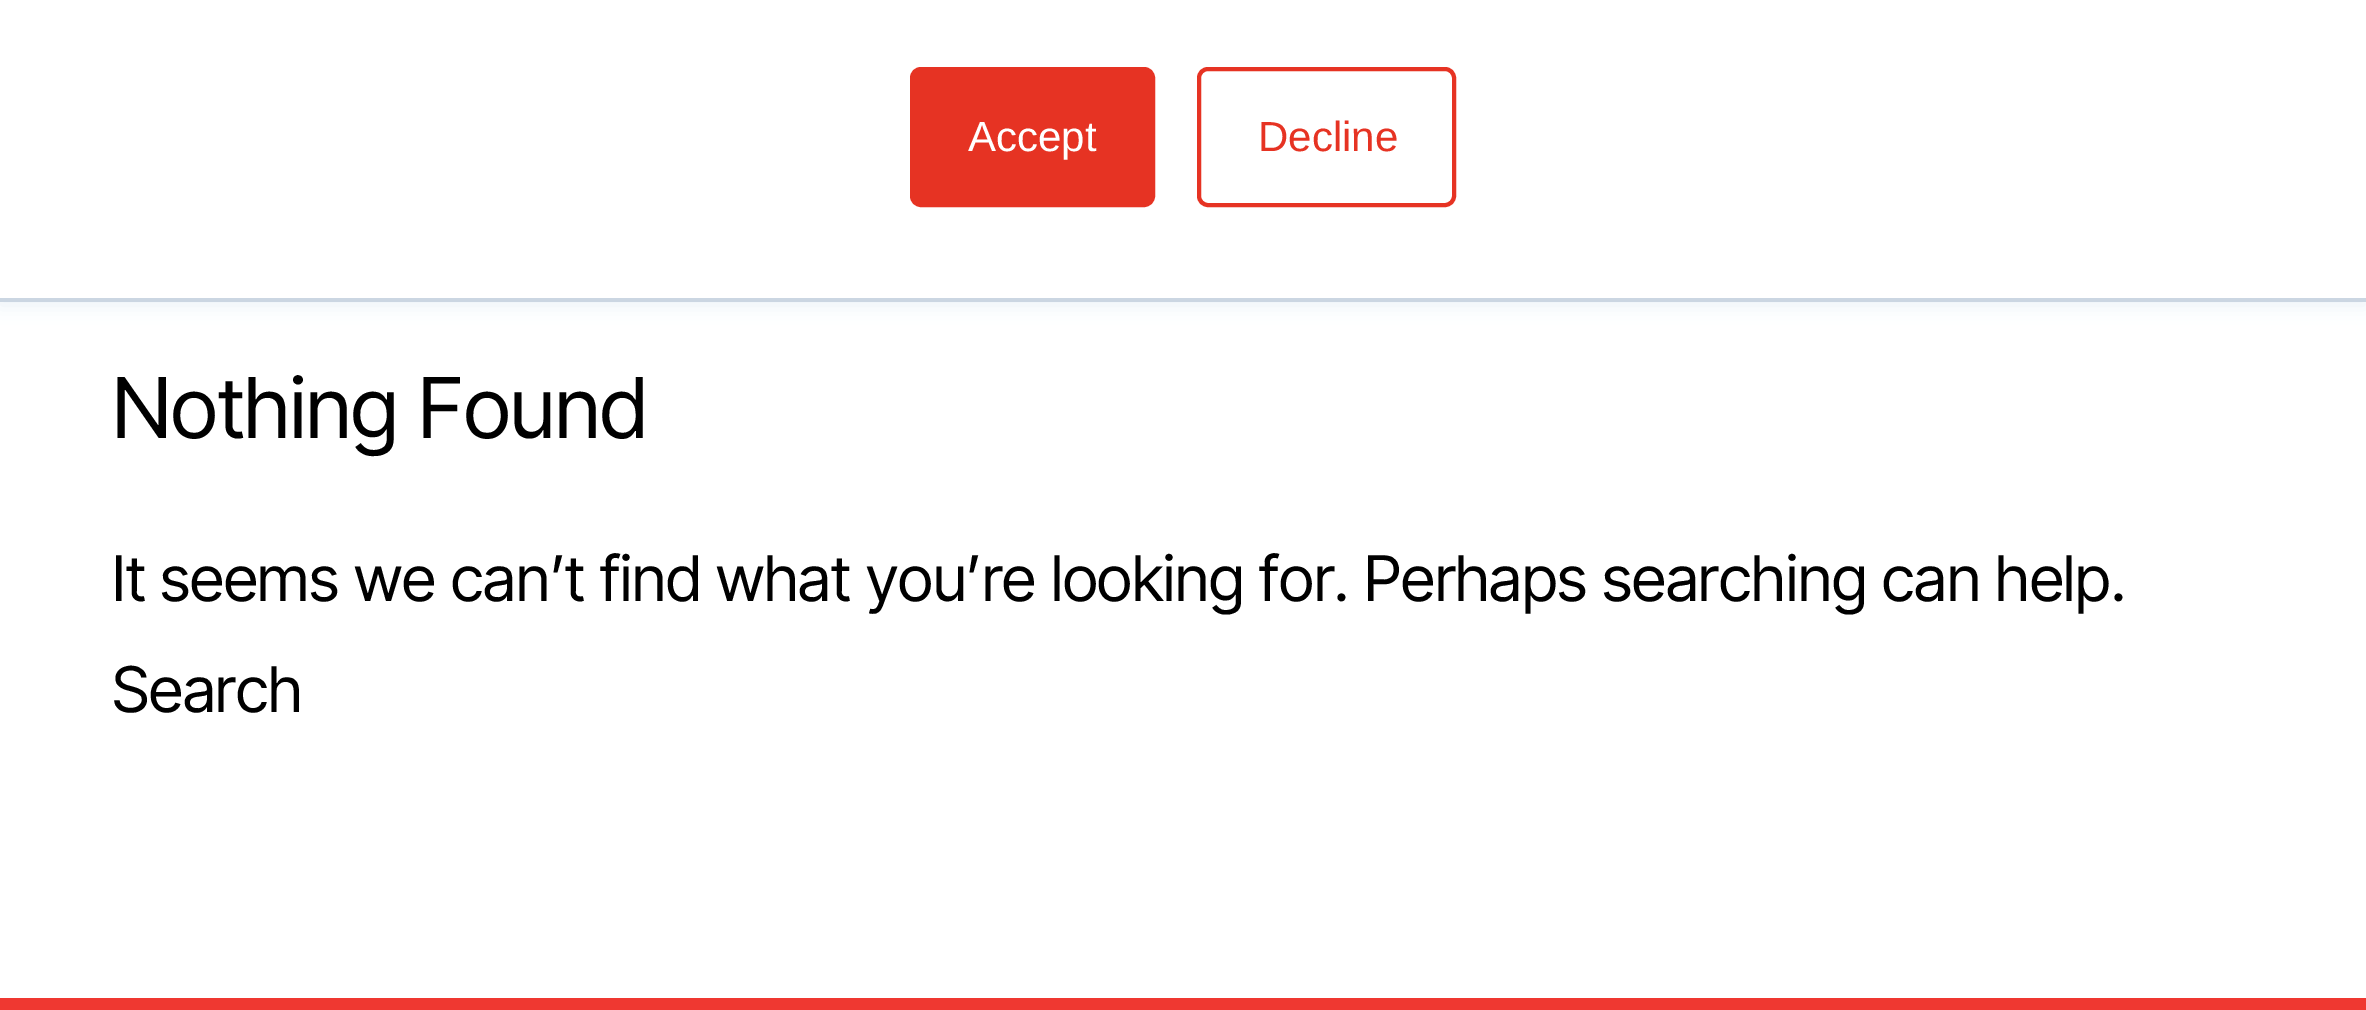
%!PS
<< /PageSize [2366 1010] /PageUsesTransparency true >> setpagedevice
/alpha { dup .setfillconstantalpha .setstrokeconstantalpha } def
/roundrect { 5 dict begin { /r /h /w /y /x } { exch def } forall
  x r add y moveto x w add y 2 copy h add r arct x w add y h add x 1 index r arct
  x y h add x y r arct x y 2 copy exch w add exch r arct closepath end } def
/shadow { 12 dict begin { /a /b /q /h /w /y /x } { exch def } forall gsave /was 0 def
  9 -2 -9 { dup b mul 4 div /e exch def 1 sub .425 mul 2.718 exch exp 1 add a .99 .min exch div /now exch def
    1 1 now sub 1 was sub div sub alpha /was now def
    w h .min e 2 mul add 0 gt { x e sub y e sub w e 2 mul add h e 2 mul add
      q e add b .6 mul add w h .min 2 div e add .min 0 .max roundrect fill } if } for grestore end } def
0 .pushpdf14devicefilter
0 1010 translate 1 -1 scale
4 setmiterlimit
1 setgray
0 0 2366 1010 rectfill
0.918 0.941 0.965 setrgbcolor
0 -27 2366 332 0 9 1 shadow
1 setgray
0 0 2366 298 rectfill
0.796 0.839 0.886 setrgbcolor
0 298 2366 4 rectfill
0.902 0.2 0.137 setrgbcolor
912 69 241 136 9 roundrect gsave fill grestore
4 setlinewidth
stroke
/LiberationSans-Regular [42 0 0 -42 0 0] selectfont
1 setgray
968 151 moveto (Accept) show
0.902 0.2 0.137 setrgbcolor
1199 69 255 136 9 roundrect stroke
1258 151 moveto (Decline) show
/InterTight-Regular [84 0 0 -84 0 0] selectfont
0 setgray
112 438 moveto (Nothing Found) show
/InterTight-Regular [63 0 0 -63 0 0] selectfont
112 601 moveto (It seems we can’t find what you’re looking for. Perhaps searching can help.) show
112 712 moveto (Search) show
0.937 0.22 0.192 setrgbcolor
0 998 2366 12 rectfill
.poppdf14devicefilter showpage
